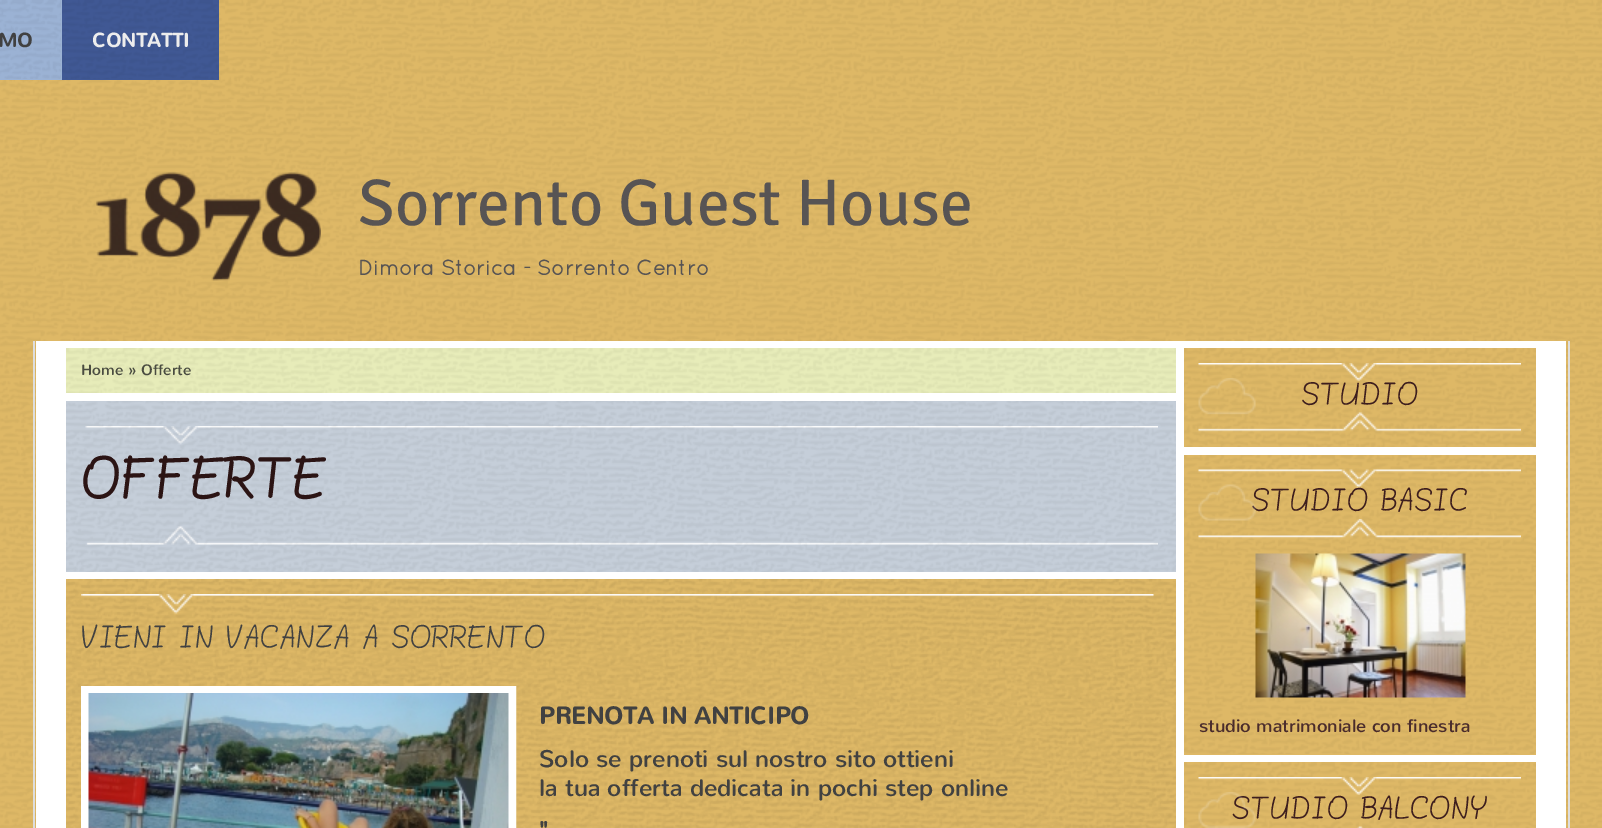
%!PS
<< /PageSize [1602 828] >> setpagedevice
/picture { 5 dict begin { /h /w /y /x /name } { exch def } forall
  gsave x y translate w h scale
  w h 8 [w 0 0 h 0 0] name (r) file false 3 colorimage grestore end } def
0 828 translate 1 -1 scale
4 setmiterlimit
0.871 0.722 0.4 setrgbcolor
0 0 1602 828 rectfill
(img1.rgb) 0 0 1602 828 picture
0.608 0.698 0.831 setrgbcolor
0 0 62 80 rectfill
(img2.rgb) 0 0 61 79 picture
/Nunito-Bold [19.5 0 0 -19.5 0 0] selectfont
0.255 setgray
-2 47 moveto (MO) show
0.251 0.345 0.58 setrgbcolor
62 0 157 80 rectfill
(img3.rgb) 62 0 157 79 picture
0.929 setgray
92 47 moveto (CONTATTI) show
(img4.rgb) 96 172 225 109 picture
/SignikaNegative-Regular [66 0 0 -66 0 0] selectfont
0.341 0.329 0.329 setrgbcolor
358 225 moveto (Sorrento Guest House) show
/Quicksand-Bold [21 0 0 -21 0 0] selectfont
358 275 moveto (Dimora Storica - Sorrento Centro) show
0.867 setgray
1568 341 2 487 rectfill
33 341 2 487 rectfill
1 setgray
66 341 1470 7 rectfill
1536 341 30 487 rectfill
36 341 30 487 rectfill
0.906 0.925 0.725 setrgbcolor
66 348 1110 45 rectfill
(img5.rgb) 66 348 1110 45 picture
1 setgray
66 393 1110 8 rectfill
/Nunito-Regular [15 0 0 -15 0 0] selectfont
0.29 0.298 0.255 setrgbcolor
81 375 moveto (Home » Offerte) show
0.773 0.808 0.851 setrgbcolor
66 401 1110 171 rectfill
(img6.rgb) 66 401 1110 171 picture
1 setgray
66 572 1110 7 rectfill
/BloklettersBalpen-Bold [43.5 0 0 -43.5 0 0] selectfont
0.169 0.078 0.078 setrgbcolor
81 497 moveto (OFFERTE) show
(img9.rgb) 66 579 1110 249 picture
(img7.rgb) 81 594 1073 20 picture
/BloklettersBalpen-Regular [24 0 0 -24 0 0] selectfont
0.255 setgray
81 647 moveto (VIENI IN VACANZA A SORRENTO) show
1 setgray
8 setlinewidth
85 690 427 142 rectstroke
(img8.rgb) 88 693 421 135 picture
/Nunito-Bold [24 0 0 -24 0 0] selectfont
0.255 setgray
539 724 moveto (PRENOTA IN ANTICIPO) show
/Nunito-Regular [24 0 0 -24 0 0] selectfont
539 767 moveto (Solo se prenoti sul nostro sito ottieni) show
539 796 moveto (la tua offerta dedicata in pochi step online) show
/Nunito-Bold [24 0 0 -24 0 0] selectfont
539 839 moveto (") show
1 setgray
1176 348 360 480 rectfill
0.871 0.722 0.4 setrgbcolor
1184 348 352 99 rectfill
(img10.rgb) 1184 348 352 99 picture
(img11.rgb) 1198 363 323 18 picture
(img12.rgb) 1198 412 323 20 picture
(img13.rgb) 1198 378 58 37 picture
/BloklettersBalpen-Regular [24 0 0 -24 0 0] selectfont
0.239 0.118 0.118 setrgbcolor
1301 404 moveto (STUDIO) show
0.871 0.722 0.4 setrgbcolor
1184 455 352 300 rectfill
(img14.rgb) 1184 455 352 299 picture
(img15.rgb) 1198 469 323 19 picture
(img16.rgb) 1198 519 323 20 picture
0.239 0.118 0.118 setrgbcolor
1251 510 moveto (STUDIO BASIC) show
(img17.rgb) 1198 484 58 37 picture
(img18.rgb) 1255 553 211 145 picture
/Nunito-Regular [18 0 0 -18 0 0] selectfont
0.29 0.173 0.173 setrgbcolor
1199 732 moveto (studio matrimoniale con finestra) show
0.871 0.722 0.4 setrgbcolor
1184 762 352 66 rectfill
(img19.rgb) 1184 762 352 66 picture
(img20.rgb) 1198 777 323 18 picture
(img21.rgb) 1357 826 7 2 picture
/BloklettersBalpen-Regular [24 0 0 -24 0 0] selectfont
0.239 0.118 0.118 setrgbcolor
1231 818 moveto (STUDIO BALCONY) show
(img22.rgb) 1198 792 58 36 picture
showpage
